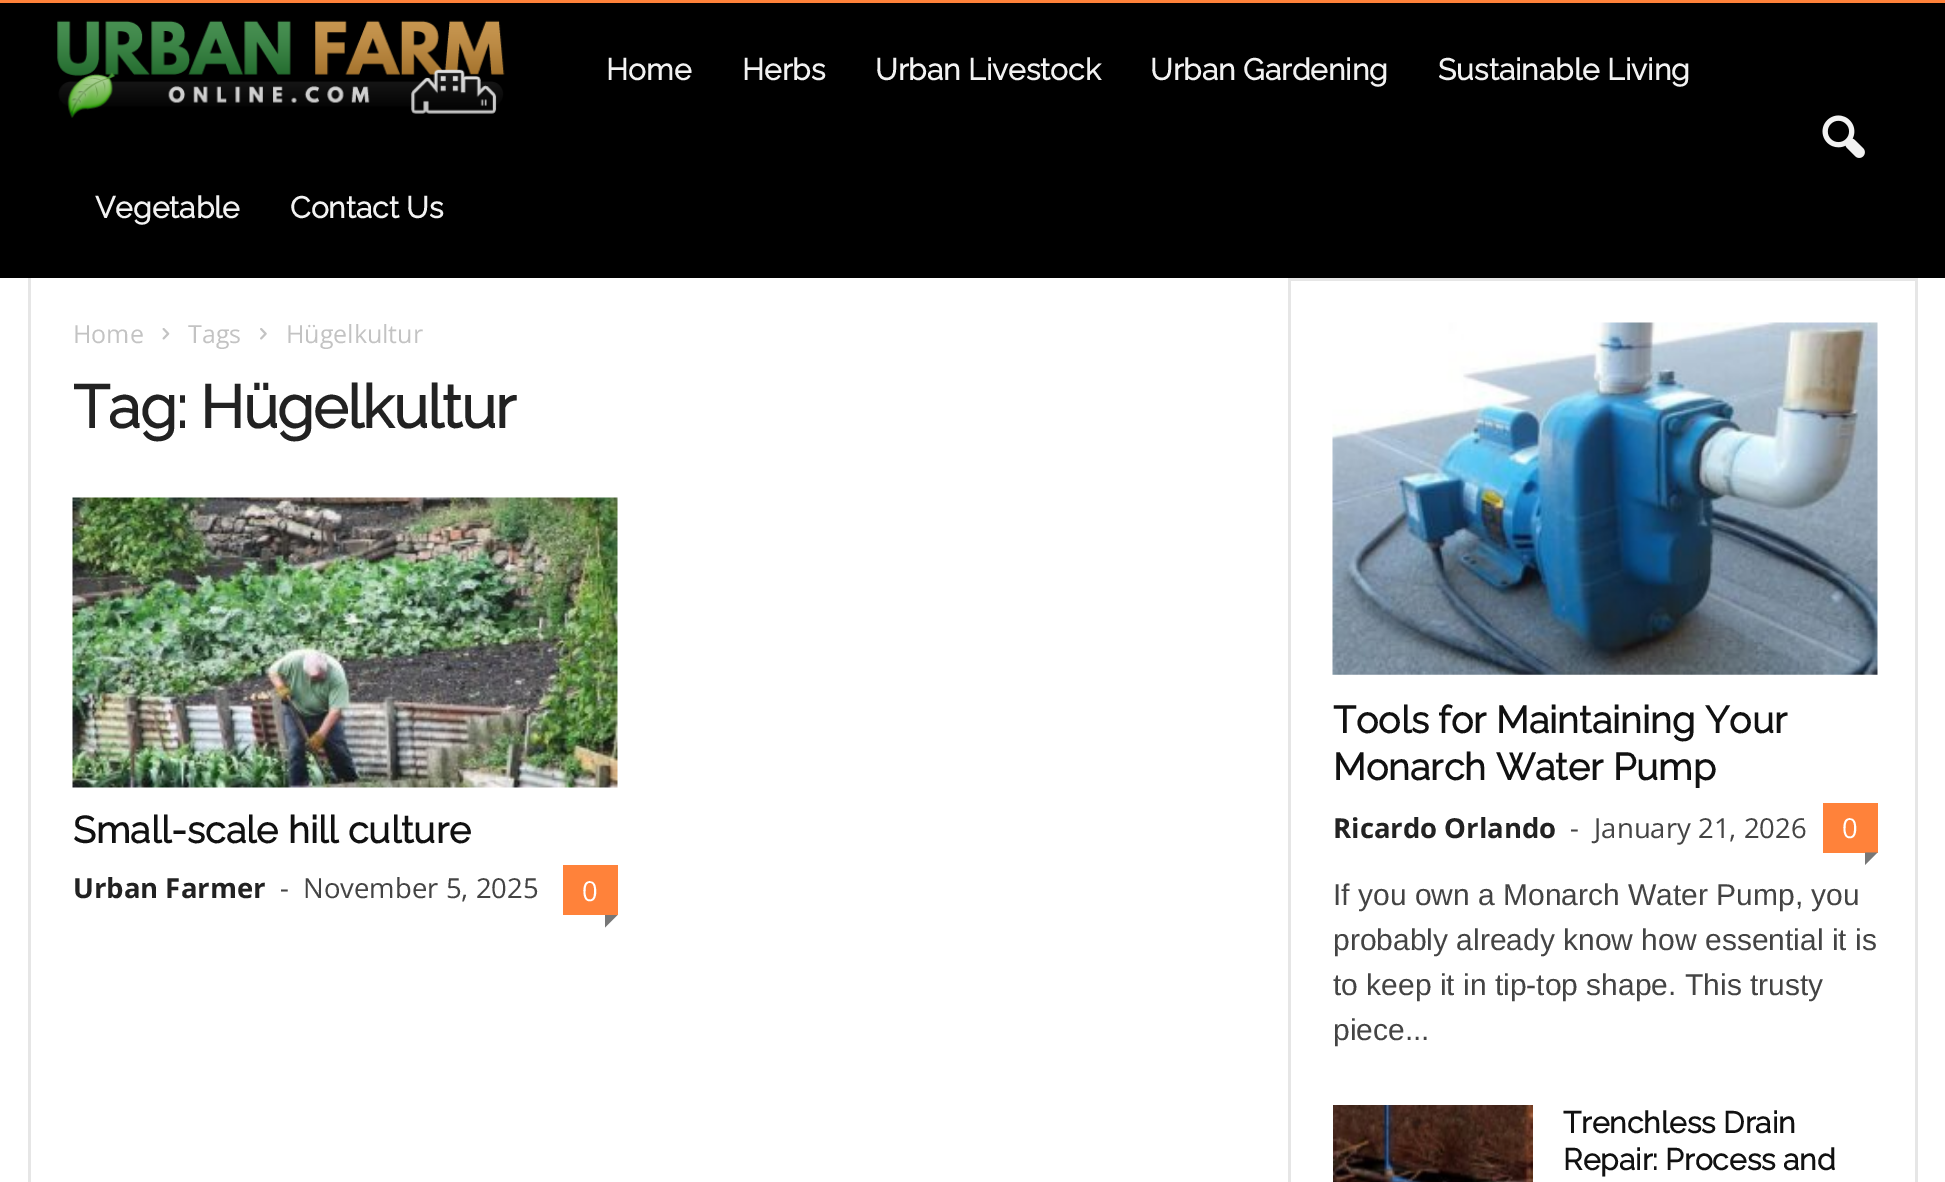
%!PS
<< /PageSize [1945 1182] >> setpagedevice
/picture { 5 dict begin { /h /w /y /x /name } { exch def } forall
  gsave x y translate w h scale
  w h 8 [w 0 0 h 0 0] name (r) file false 3 colorimage grestore end } def
0 1182 translate 1 -1 scale
4 setmiterlimit
1 setgray
0 0 1945 1182 rectfill
1 0.51 0.227 setrgbcolor
0 0 1945 3 rectfill
0 setgray
0 3 1945 275 rectfill
(img1.rgb) 57 20 448 98 picture
/Raleway-Bold [30 0 0 -30 0 0] selectfont
0.949 setgray
606 80 moveto (Home) show
742 80 moveto (Herbs) show
875 80 moveto (Urban Livestock) show
1150 80 moveto (Urban Gardening) show
1438 80 moveto (Sustainable Living) show
95 218 moveto (Vegetable) show
290 218 moveto (Contact Us) show
(img2.rgb) 1822 115 43 43 picture
0.902 setgray
28 278 3 904 rectfill
/OpenSans-Regular [25 0 0 -25 0 0] selectfont
0.765 setgray
73 343 moveto (Home) show
(img3.rgb) 162 328 8 12 picture
188 343 moveto (Tags) show
(img4.rgb) 260 328 7 12 picture
286 343 moveto (Hügelkultur) show
/Raleway-Bold [60 0 0 -60 0 0] selectfont
0.133 setgray
73 428 moveto -1.25 0 (Tag: Hügelkultur) ashow
(img5.rgb) 72 497 546 291 picture
/Raleway-Bold [37.5 0 0 -37.5 0 0] selectfont
0.067 setgray
73 843 moveto (Small-scale hill culture) show
/OpenSans-Bold [27.5 0 0 -27.5 0 0] selectfont
0.133 setgray
73 898 moveto (Urban Farmer) show
/OpenSans-Regular [27.5 0 0 -27.5 0 0] selectfont
0.267 setgray
280 898 moveto (-) show
303 898 moveto (November 5, 2025) show
1 0.51 0.227 setrgbcolor
563 865 55 50 rectfill
1 setgray
582 901 moveto (0) show
0.467 setgray
newpath 605 915 moveto 617.5 915 lineto 605 927.5 lineto closepath fill
0.902 setgray
1288 278 3 904 rectfill
1915 278 3 904 rectfill
1290 278 628 3 rectfill
(img6.rgb) 1332 322 546 353 picture
/Raleway-Bold [37.5 0 0 -37.5 0 0] selectfont
0.067 setgray
1333 733 moveto (Tools for Maintaining Your) show
1333 780 moveto (Monarch Water Pump) show
/OpenSans-Bold [27.5 0 0 -27.5 0 0] selectfont
0.133 setgray
1333 838 moveto (Ricardo Orlando) show
/OpenSans-Regular [27.5 0 0 -27.5 0 0] selectfont
0.267 setgray
1570 838 moveto (-) show
1594 838 moveto (January 21, 2026) show
1 0.51 0.227 setrgbcolor
1823 803 55 50 rectfill
1 setgray
1842 838 moveto (0) show
0.467 setgray
newpath 1865 852.5 moveto 1877.5 852.5 lineto 1865 865 lineto closepath fill
/LiberationSans-Regular [30 0 0 -30 0 0] selectfont
0.267 setgray
1333 905 moveto (If you own a Monarch Water Pump, you) show
1333 950 moveto (probably already know how essential it is) show
1333 995 moveto (to keep it in tip-top shape. This trusty) show
1333 1040 moveto (piece...) show
(img7.rgb) 1333 1105 200 77 picture
/Raleway-Bold [30 0 0 -30 0 0] selectfont
0.067 setgray
1563 1133 moveto (Trenchless Drain) show
1563 1170 moveto (Repair: Process and) show
showpage
